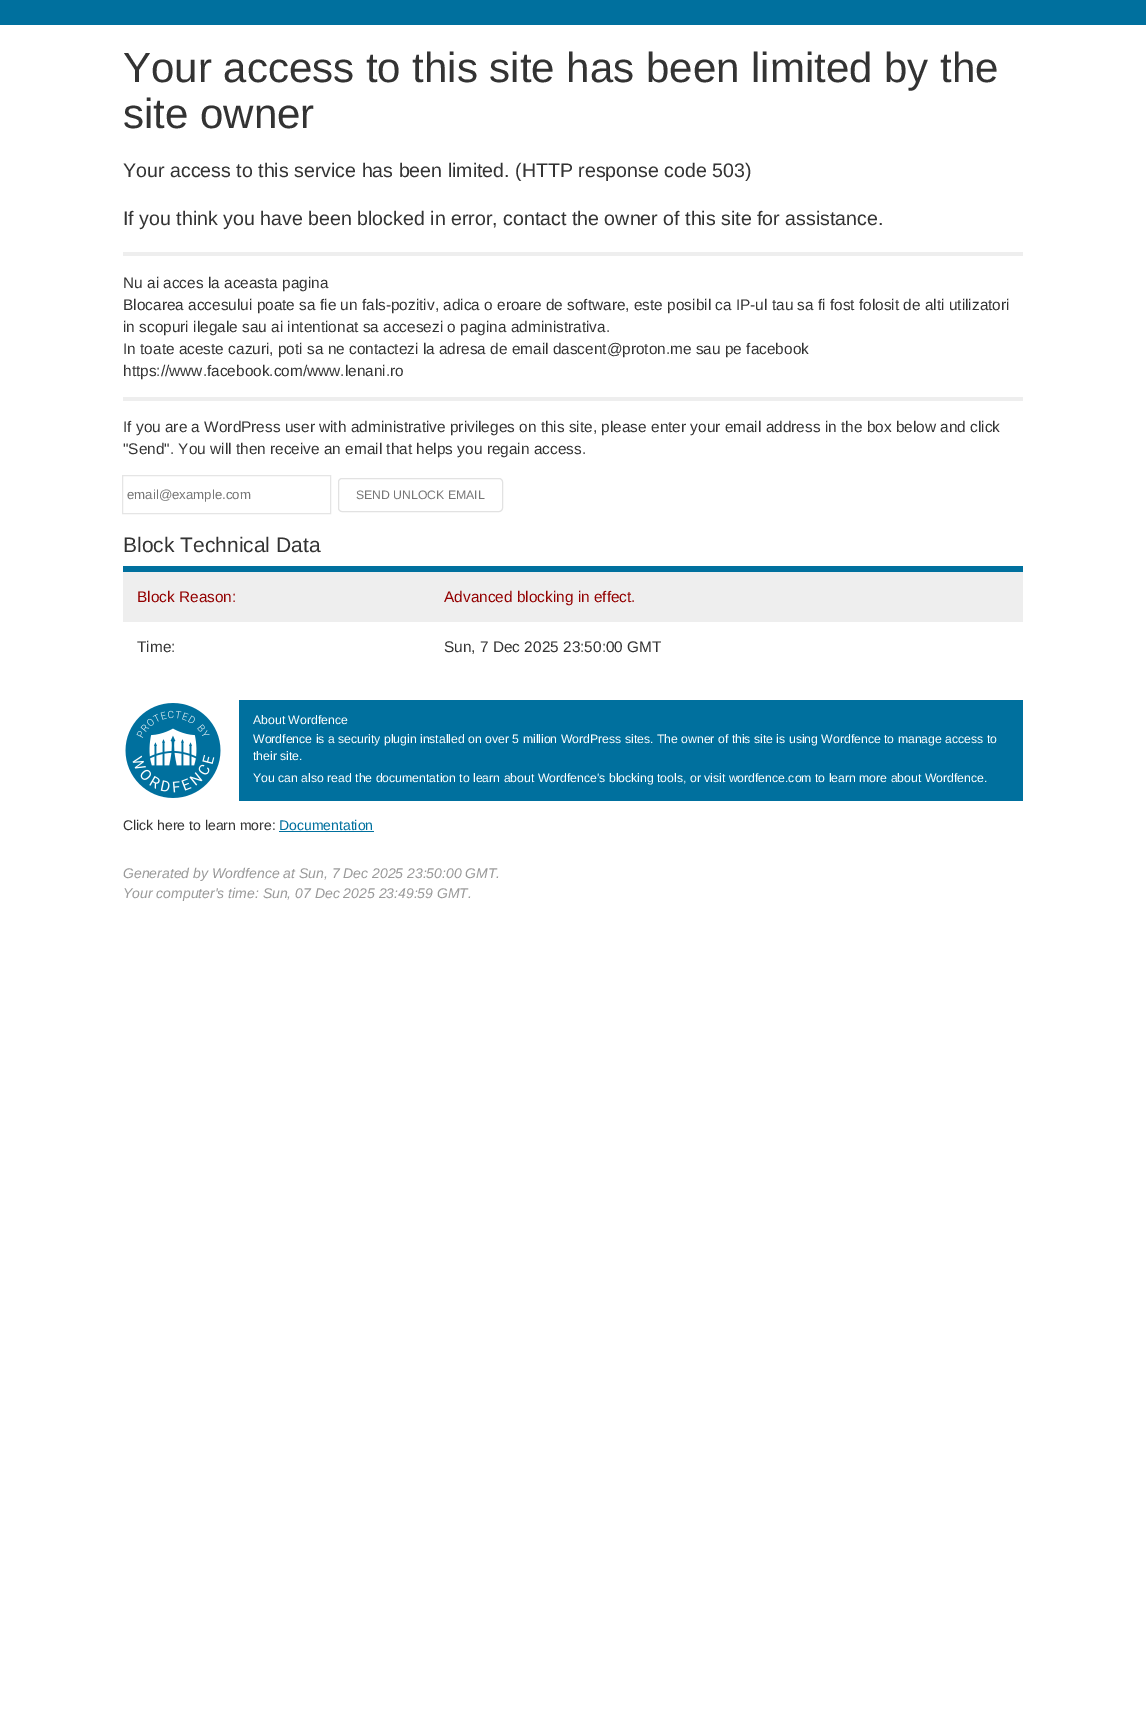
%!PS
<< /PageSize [1146 1735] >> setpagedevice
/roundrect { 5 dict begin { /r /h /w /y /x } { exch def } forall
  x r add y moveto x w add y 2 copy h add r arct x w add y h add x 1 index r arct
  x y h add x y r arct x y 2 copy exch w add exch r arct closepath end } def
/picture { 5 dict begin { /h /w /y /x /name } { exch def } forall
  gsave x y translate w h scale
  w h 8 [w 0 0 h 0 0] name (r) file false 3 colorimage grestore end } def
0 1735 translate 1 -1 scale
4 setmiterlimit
1 setgray
0 0 1146 1735 rectfill
0 0.439 0.62 setrgbcolor
0 0 1146 25 rectfill
/LiberationSans-Regular [42 0 0 -42 0 0] selectfont
0.2 setgray
123 82 moveto (Your access to this site has been limited by the) show
123 128 moveto (site owner) show
/LiberationSans-Regular [19.6 0 0 -19.6 0 0] selectfont
123 177 moveto (Your access to this service has been limited. \(HTTP response code 503\)) show
123 225 moveto (If you think you have been blocked in error, contact the owner of this site for assistance.) show
0.933 setgray
123 252 900 4 rectfill
/LiberationSans-Regular [15.4 0 0 -15.4 0 0] selectfont
0.2 setgray
123 288 moveto (Nu ai acces la aceasta pagina) show
123 310 moveto (Blocarea accesului poate sa fie un fals-pozitiv, adica o eroare de software, este posibil ca IP-ul tau sa fi fost folosit de alti utilizatori) show
123 332 moveto (in scopuri ilegale sau ai intentionat sa accesezi o pagina administrativa.) show
123 354 moveto (In toate aceste cazuri, poti sa ne contactezi la adresa de email dascent@proton.me sau pe facebook) show
123 376 moveto (https://www.facebook.com/www.lenani.ro) show
0.933 setgray
123 397 900 4 rectfill
0.2 setgray
123 432 moveto (If you are a WordPress user with administrative privileges on this site, please enter your email address in the box below and click) show
123 454 moveto ("Send". You will then receive an email that helps you regain access.) show
0.898 setgray
122.5 475.5 208 38 rectstroke
/LiberationSans-Regular [13.25 0 0 -13.25 0 0] selectfont
0.459 setgray
127 499 moveto (email@example.com) show
0.886 setgray
338.5 478.5 164 33 3.5 roundrect stroke
/LiberationSans-Regular [12.25 0 0 -12.25 0 0] selectfont
0.459 setgray
356 499 moveto (SEND UNLOCK EMAIL) show
/LiberationSans-Regular [21 0 0 -21 0 0] selectfont
0.2 setgray
123 552 moveto (Block Technical Data) show
0 0.439 0.62 setrgbcolor
123 566 900 6 rectfill
0.933 setgray
123 572 900 50 rectfill
/LiberationSans-Regular [15.4 0 0 -15.4 0 0] selectfont
0.576 0 0 setrgbcolor
137 602 moveto (Block Reason:) show
444 602 moveto (Advanced blocking in effect.) show
0.2 setgray
137 652 moveto (Time:) show
444 652 moveto (Sun, 7 Dec 2025 23:50:00 GMT) show
(img1.rgb) 125 703 96 95 picture
0 0.439 0.62 setrgbcolor
239 700 784 101 rectfill
/LiberationSans-Regular [12.25 0 0 -12.25 0 0] selectfont
1 setgray
253 724 moveto (About Wordfence) show
253 743 moveto (Wordfence is a security plugin installed on over 5 million WordPress sites. The owner of this site is using Wordfence to manage access to) show
253 760 moveto (their site.) show
253 782 moveto (You can also read the documentation to learn about Wordfence's blocking tools, or visit wordfence.com to learn more about Wordfence.) show
/LiberationSans-Regular [14 0 0 -14 0 0] selectfont
0.2 setgray
123 830 moveto (Click here to learn more:) show
0 0.439 0.62 setrgbcolor
279 830 moveto (Documentation) show
279 831 95 1 rectfill
/LiberationSans-Italic [14 0 0 -14 0 0] selectfont
0.6 setgray
123 878 moveto (Generated by Wordfence at Sun, 7 Dec 2025 23:50:00 GMT.) show
123 898 moveto (Your computer's time: Sun, 07 Dec 2025 23:49:59 GMT.) show
showpage
